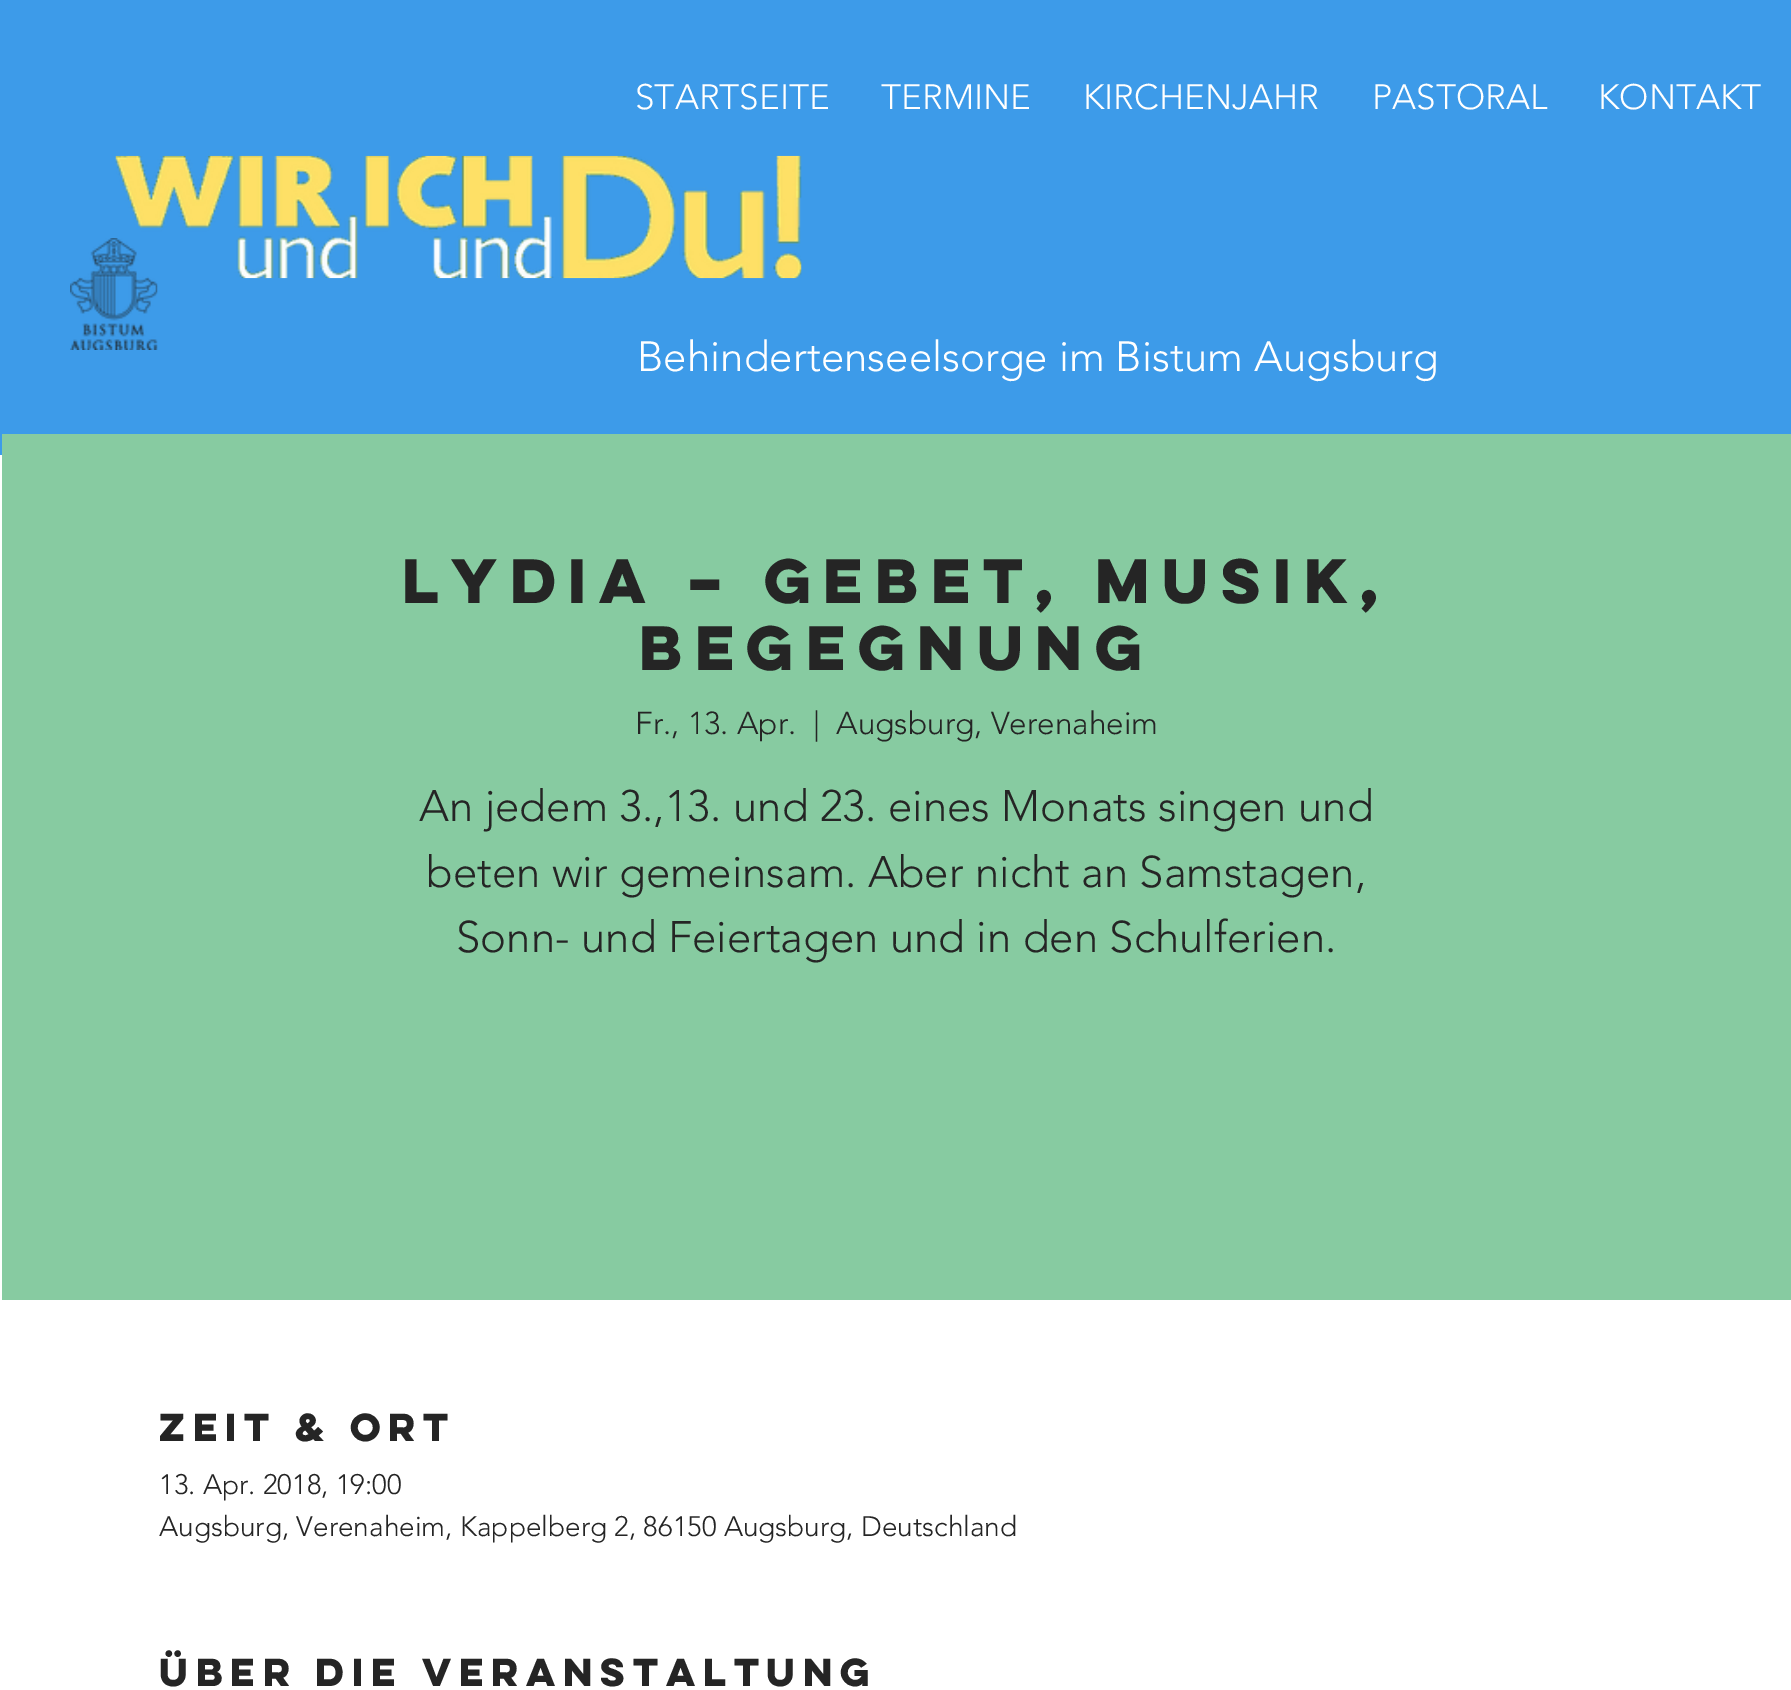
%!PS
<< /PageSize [1791 1690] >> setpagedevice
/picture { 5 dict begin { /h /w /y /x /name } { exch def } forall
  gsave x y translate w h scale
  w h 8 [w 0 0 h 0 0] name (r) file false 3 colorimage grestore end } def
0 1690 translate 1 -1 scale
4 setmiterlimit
1 setgray
0 0 1791 1690 rectfill
0.239 0.608 0.914 setrgbcolor
0 0 1791 455 rectfill
/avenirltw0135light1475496-Light [35 0 0 -35 0 0] selectfont
1 setgray
635 109 moveto (STARTSEITE) show
881 109 moveto (TERMINE) show
1083 109 moveto (KIRCHENJAHR) show
1372 109 moveto (PASTORAL) show
1598 109 moveto (KONTAKT) show
(img1.rgb) 115 155 687 124 picture
(img2.rgb) 70 238 88 112 picture
/avenirltw0135light1475496-Light [42 0 0 -42 0 0] selectfont
637 371 moveto (Behindertenseelsorge im Bistum Augsburg) show
0.529 0.796 0.631 setrgbcolor
2 434 1789 866 rectfill
/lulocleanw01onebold-Bold [56 0 0 -56 0 0] selectfont
0.145 setgray
402 603 moveto (LyDia – Gebet, Musik,) show
639 670 moveto (Begegnung) show
/avenirltw0135light1475496-Light [31.5 0 0 -31.5 0 0] selectfont
635 734 moveto (Fr., 13. Apr.) show
813 734 moveto (|) show
836 734 moveto (Augsburg, Verenaheim) show
/avenirltw0135light1475496-Light [43.75 0 0 -43.75 0 0] selectfont
419 821 moveto (An jedem 3.,13. und 23. eines Monats singen und) show
426 887 moveto (beten wir gemeinsam. Aber nicht an Samstagen,) show
456 952 moveto (Sonn- und Feiertagen und in den Schulferien.) show
/lulocleanw01onebold-Bold [35 0 0 -35 0 0] selectfont
159 1441 moveto (Zeit & Ort) show
/avenirltw0135light1475496-Light [28 0 0 -28 0 0] selectfont
159 1494 moveto (13. Apr. 2018, 19:00) show
159 1536 moveto (Augsburg, Verenaheim, Kappelberg 2, 86150 Augsburg, Deutschland) show
/lulocleanw01onebold-Bold [35 0 0 -35 0 0] selectfont
159 1686 moveto (Über die Veranstaltung) show
showpage
